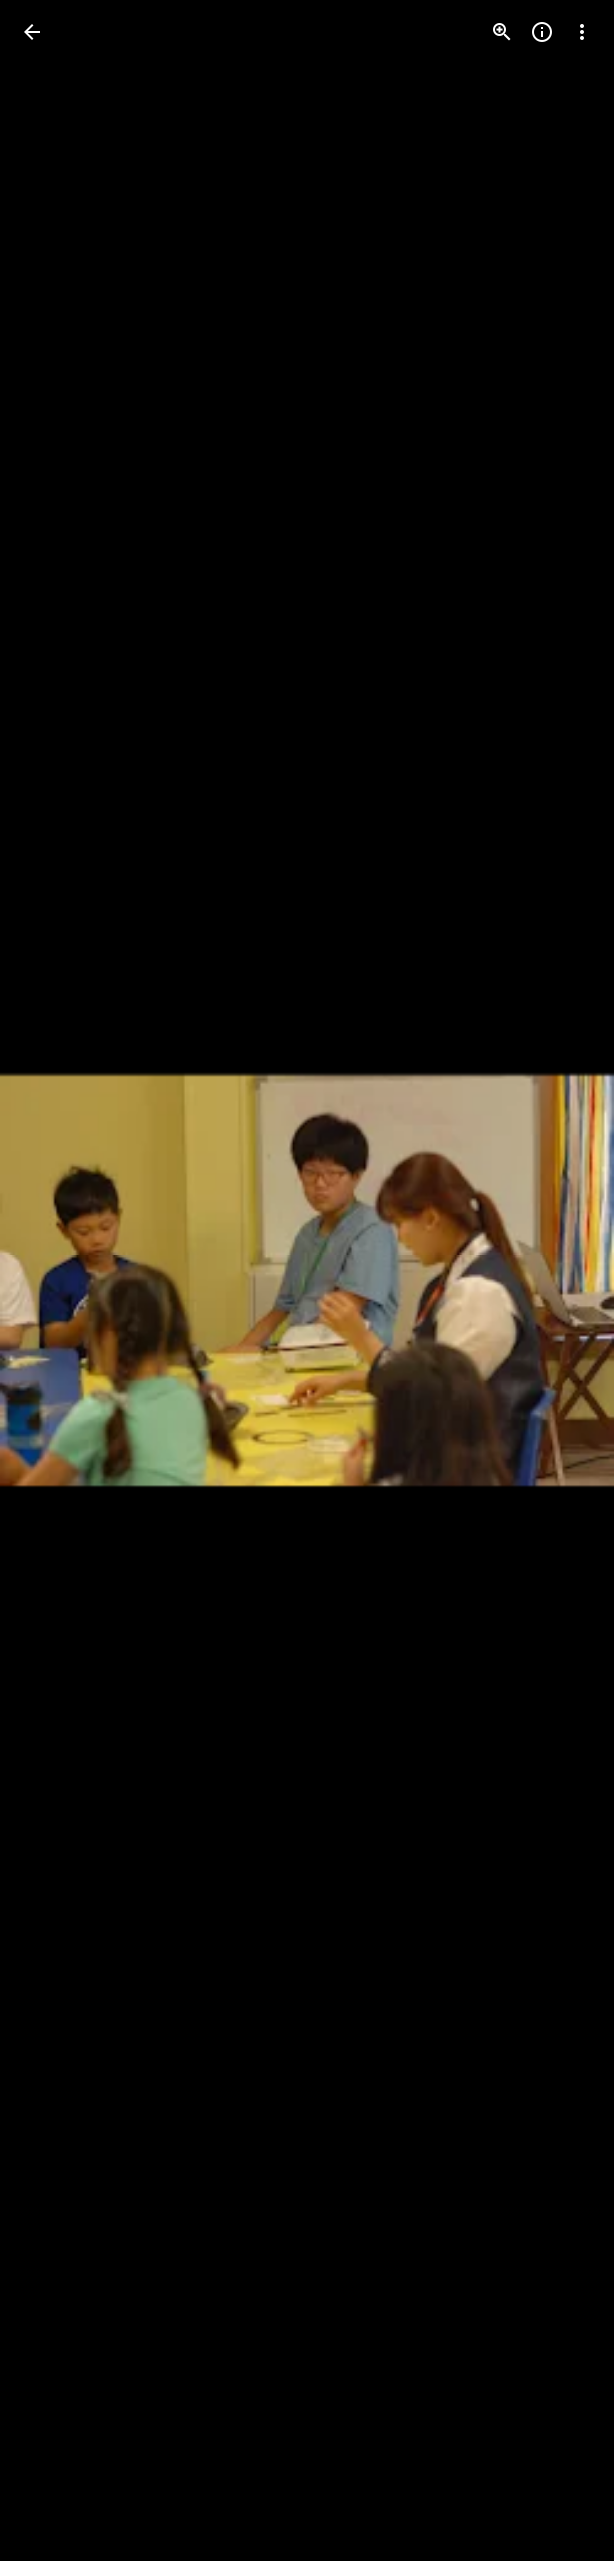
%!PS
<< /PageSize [614 2561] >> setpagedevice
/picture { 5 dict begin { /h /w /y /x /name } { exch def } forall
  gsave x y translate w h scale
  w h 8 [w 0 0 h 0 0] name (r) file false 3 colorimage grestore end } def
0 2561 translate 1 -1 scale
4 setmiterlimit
0 setgray
0 0 614 2561 rectfill
(img1.rgb) 24 24 16 16 picture
(img2.rgb) 493 23 18 18 picture
(img3.rgb) 532 22 20 20 picture
(img4.rgb) 580 24 4 16 picture
(img5.rgb) 0 1072 614 416 picture
showpage
